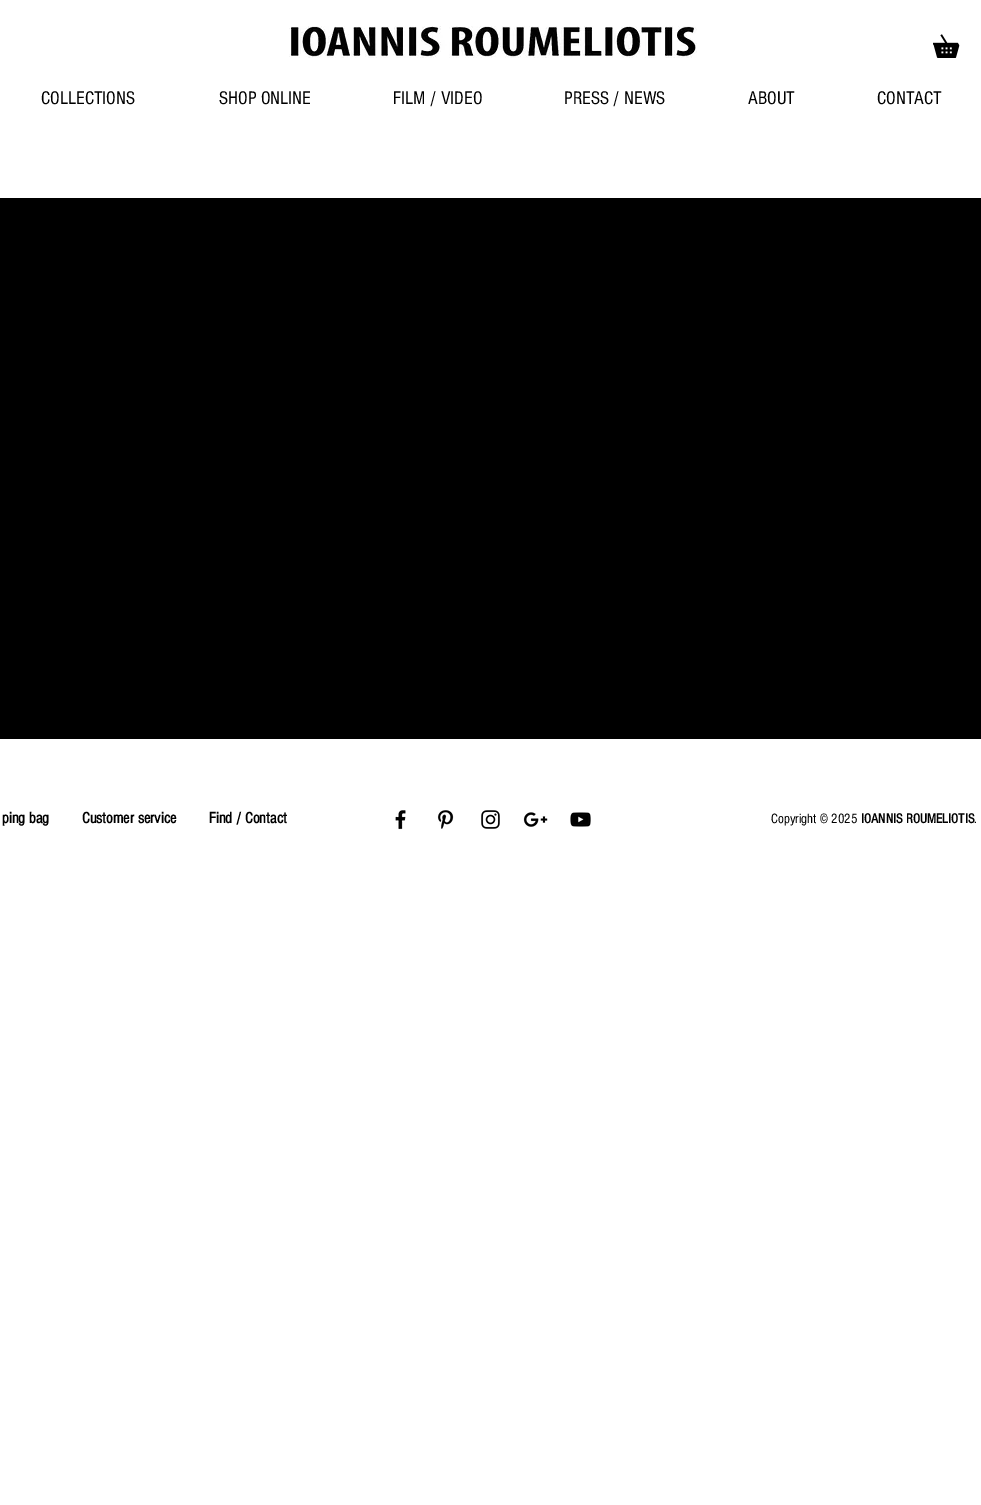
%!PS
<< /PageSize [981 1505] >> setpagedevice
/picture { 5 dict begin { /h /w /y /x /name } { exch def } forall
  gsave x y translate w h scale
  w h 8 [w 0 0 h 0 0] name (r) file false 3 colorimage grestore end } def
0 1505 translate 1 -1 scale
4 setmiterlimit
1 setgray
0 0 981 1505 rectfill
(img1.rgb) 289 26 408 32 picture
(img2.rgb) 933 34 27 24 picture
/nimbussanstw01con-Regular [19 0 0 -19 0 0] selectfont
0 setgray
41 104 moveto (COLLECTIONS) show
219 104 moveto (SHOP ONLINE) show
393 104 moveto (FILM / VIDEO) show
564 104 moveto (PRESS / NEWS) show
748 104 moveto (ABOUT) show
877 104 moveto (CONTACT) show
0 198 981 541 rectfill
/nimbussanstw01con-Bold [16 0 0 -16 0 0] selectfont
2 823 moveto (ping bag) show
82 823 moveto (Customer service) show
209 823 moveto (Find / Contact) show
(img3.rgb) 395 810 11 20 picture
(img4.rgb) 437 810 17 19 picture
(img5.rgb) 481 810 19 19 picture
(img6.rgb) 523 812 25 15 picture
(img7.rgb) 570 812 21 15 picture
/nimbussanstw01con-Regular [14 0 0 -14 0 0] selectfont
771 823 moveto (Copyright © 2025) show
/nimbussanstw01con-Bold [14 0 0 -14 0 0] selectfont
861 823 moveto (IOANNIS ROUMELIOTIS) show
/nimbussanstw01con-Regular [14 0 0 -14 0 0] selectfont
974 823 moveto (.) show
showpage
